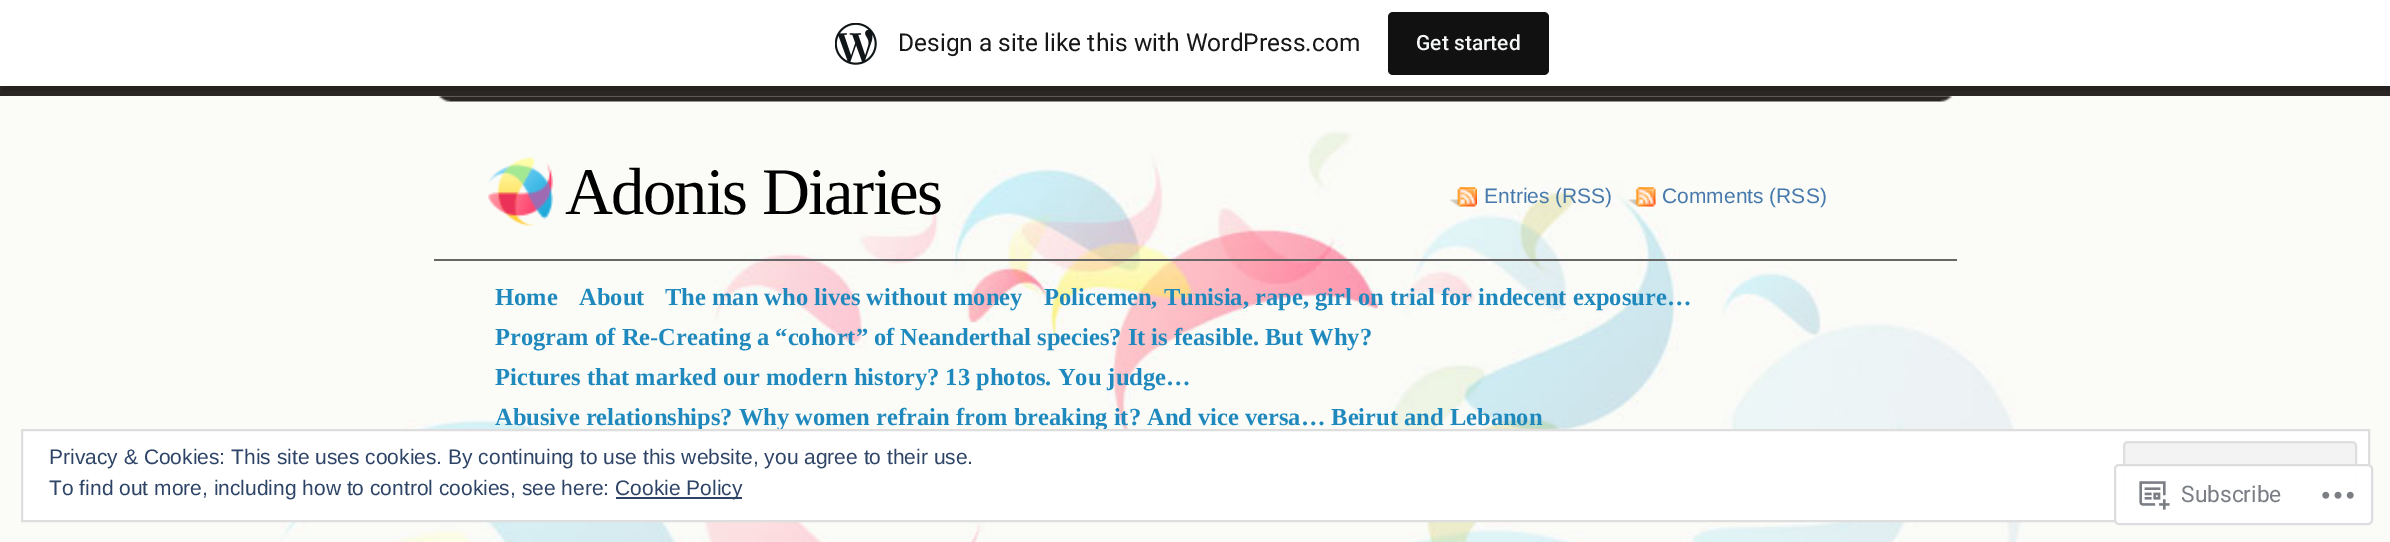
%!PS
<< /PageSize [2390 542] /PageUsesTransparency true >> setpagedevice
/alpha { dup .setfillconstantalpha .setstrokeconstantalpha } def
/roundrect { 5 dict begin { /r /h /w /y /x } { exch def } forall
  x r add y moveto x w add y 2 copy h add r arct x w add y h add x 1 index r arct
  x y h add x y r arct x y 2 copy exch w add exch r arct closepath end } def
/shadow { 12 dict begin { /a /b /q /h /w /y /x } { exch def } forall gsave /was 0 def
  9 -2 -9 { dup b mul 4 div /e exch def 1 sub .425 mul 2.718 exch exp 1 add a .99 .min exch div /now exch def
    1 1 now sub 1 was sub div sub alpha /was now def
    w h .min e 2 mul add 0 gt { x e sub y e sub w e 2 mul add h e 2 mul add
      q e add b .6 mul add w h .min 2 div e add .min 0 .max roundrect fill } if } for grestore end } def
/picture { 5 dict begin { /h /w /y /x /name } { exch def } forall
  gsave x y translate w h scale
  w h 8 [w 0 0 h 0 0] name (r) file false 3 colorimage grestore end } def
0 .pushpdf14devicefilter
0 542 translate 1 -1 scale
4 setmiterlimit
0.984 0.984 0.973 setrgbcolor
0 0 2390 542 rectfill
(img1.rgb) 280 131 1744 411 picture
0.165 0.149 0.137 setrgbcolor
0 86 2390 10 rectfill
0 setgray
0 2 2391 86 0 2 0.05 shadow
0.149 0.133 0.125 setrgbcolor
newpath 2 86 moveto 2 91 lineto 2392 91 lineto 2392 5 lineto 2390 5 lineto 2390 86 lineto closepath fill
1 setgray
0 0 2390 86 rectfill
(img2.rgb) 835 23 42 42 picture
/Roboto-Regular [24.5 0 0 -24.5 0 0] selectfont
0.09 setgray
898 51 moveto (Design a site like this with WordPress.com) show
0.067 setgray
1388 12 161 63 5 roundrect fill
/Roboto-Medium [21 0 0 -21 0 0] selectfont
0.965 0.969 0.969 setrgbcolor
1416 50 moveto (Get started) show
(img3.rgb) 438 96 1515 6 picture
0.4 setgray
434 259 1523 2 rectfill
(img4.rgb) 488 157 65 69 picture
/LiberationSerif-Regular [66.5 0 0 -66.5 0 0] selectfont
0 setgray
565 214 moveto -1.75 0 (Adonis Diaries) ashow
(img5.rgb) 1449 187 28 20 picture
/LiberationSans-Regular [21 0 0 -21 0 0] selectfont
0.278 0.475 0.675 setrgbcolor
1484 203 moveto (Entries \(RSS\)) show
(img6.rgb) 1627 187 29 20 picture
1662 203 moveto (Comments \(RSS\)) show
/LiberationSerif-Bold [24.5 0 0 -24.5 0 0] selectfont
0.122 0.537 0.745 setrgbcolor
495 305 moveto (Home) show
579 305 moveto (About) show
665 305 moveto (The man who lives without money) show
1044 305 moveto (Policemen, Tunisia, rape, girl on trial for indecent exposure…) show
495 345 moveto (Program of Re-Creating a “cohort” of Neanderthal species? It is feasible. But Why?) show
495 385 moveto (Pictures that marked our modern history? 13 photos. You judge…) show
495 425 moveto (Abusive relationships? Why women refrain from breaking it? And vice versa… Beirut and Lebanon) show
1 setgray
newpath 22 430 moveto 2369 430 lineto 2369 521 lineto 22 521 lineto closepath gsave fill grestore
0.871 setgray
2 setlinewidth
stroke
/LiberationSans-Regular [21 0 0 -21 0 0] selectfont
0.18 0.267 0.404 setrgbcolor
49 464 moveto (Privacy & Cookies: This site uses cookies. By continuing to use this website, you agree to their use.) show
0.953 setgray
2124 442 232 66 4 roundrect gsave fill grestore
0.871 setgray
stroke
0.18 0.267 0.404 setrgbcolor
49 495 moveto (To find out more, including how to control cookies, see here:) show
616 497 126 2 rectfill
615 495 moveto (Cookie Policy) show
0.98 alpha
1 setgray
2114 464 259 61 5 roundrect fill
0.863 0.863 0.871 setrgbcolor
2115 465 257 59 4 roundrect stroke
1 alpha
(img7.rgb) 2139 481 31 29 picture
/Roboto-Regular [22.75 0 0 -22.75 0 0] selectfont
0.478 0.494 0.518 setrgbcolor
2181 502 moveto (Subscribe) show
(img8.rgb) 2322 491 32 8 picture
.poppdf14devicefilter showpage
